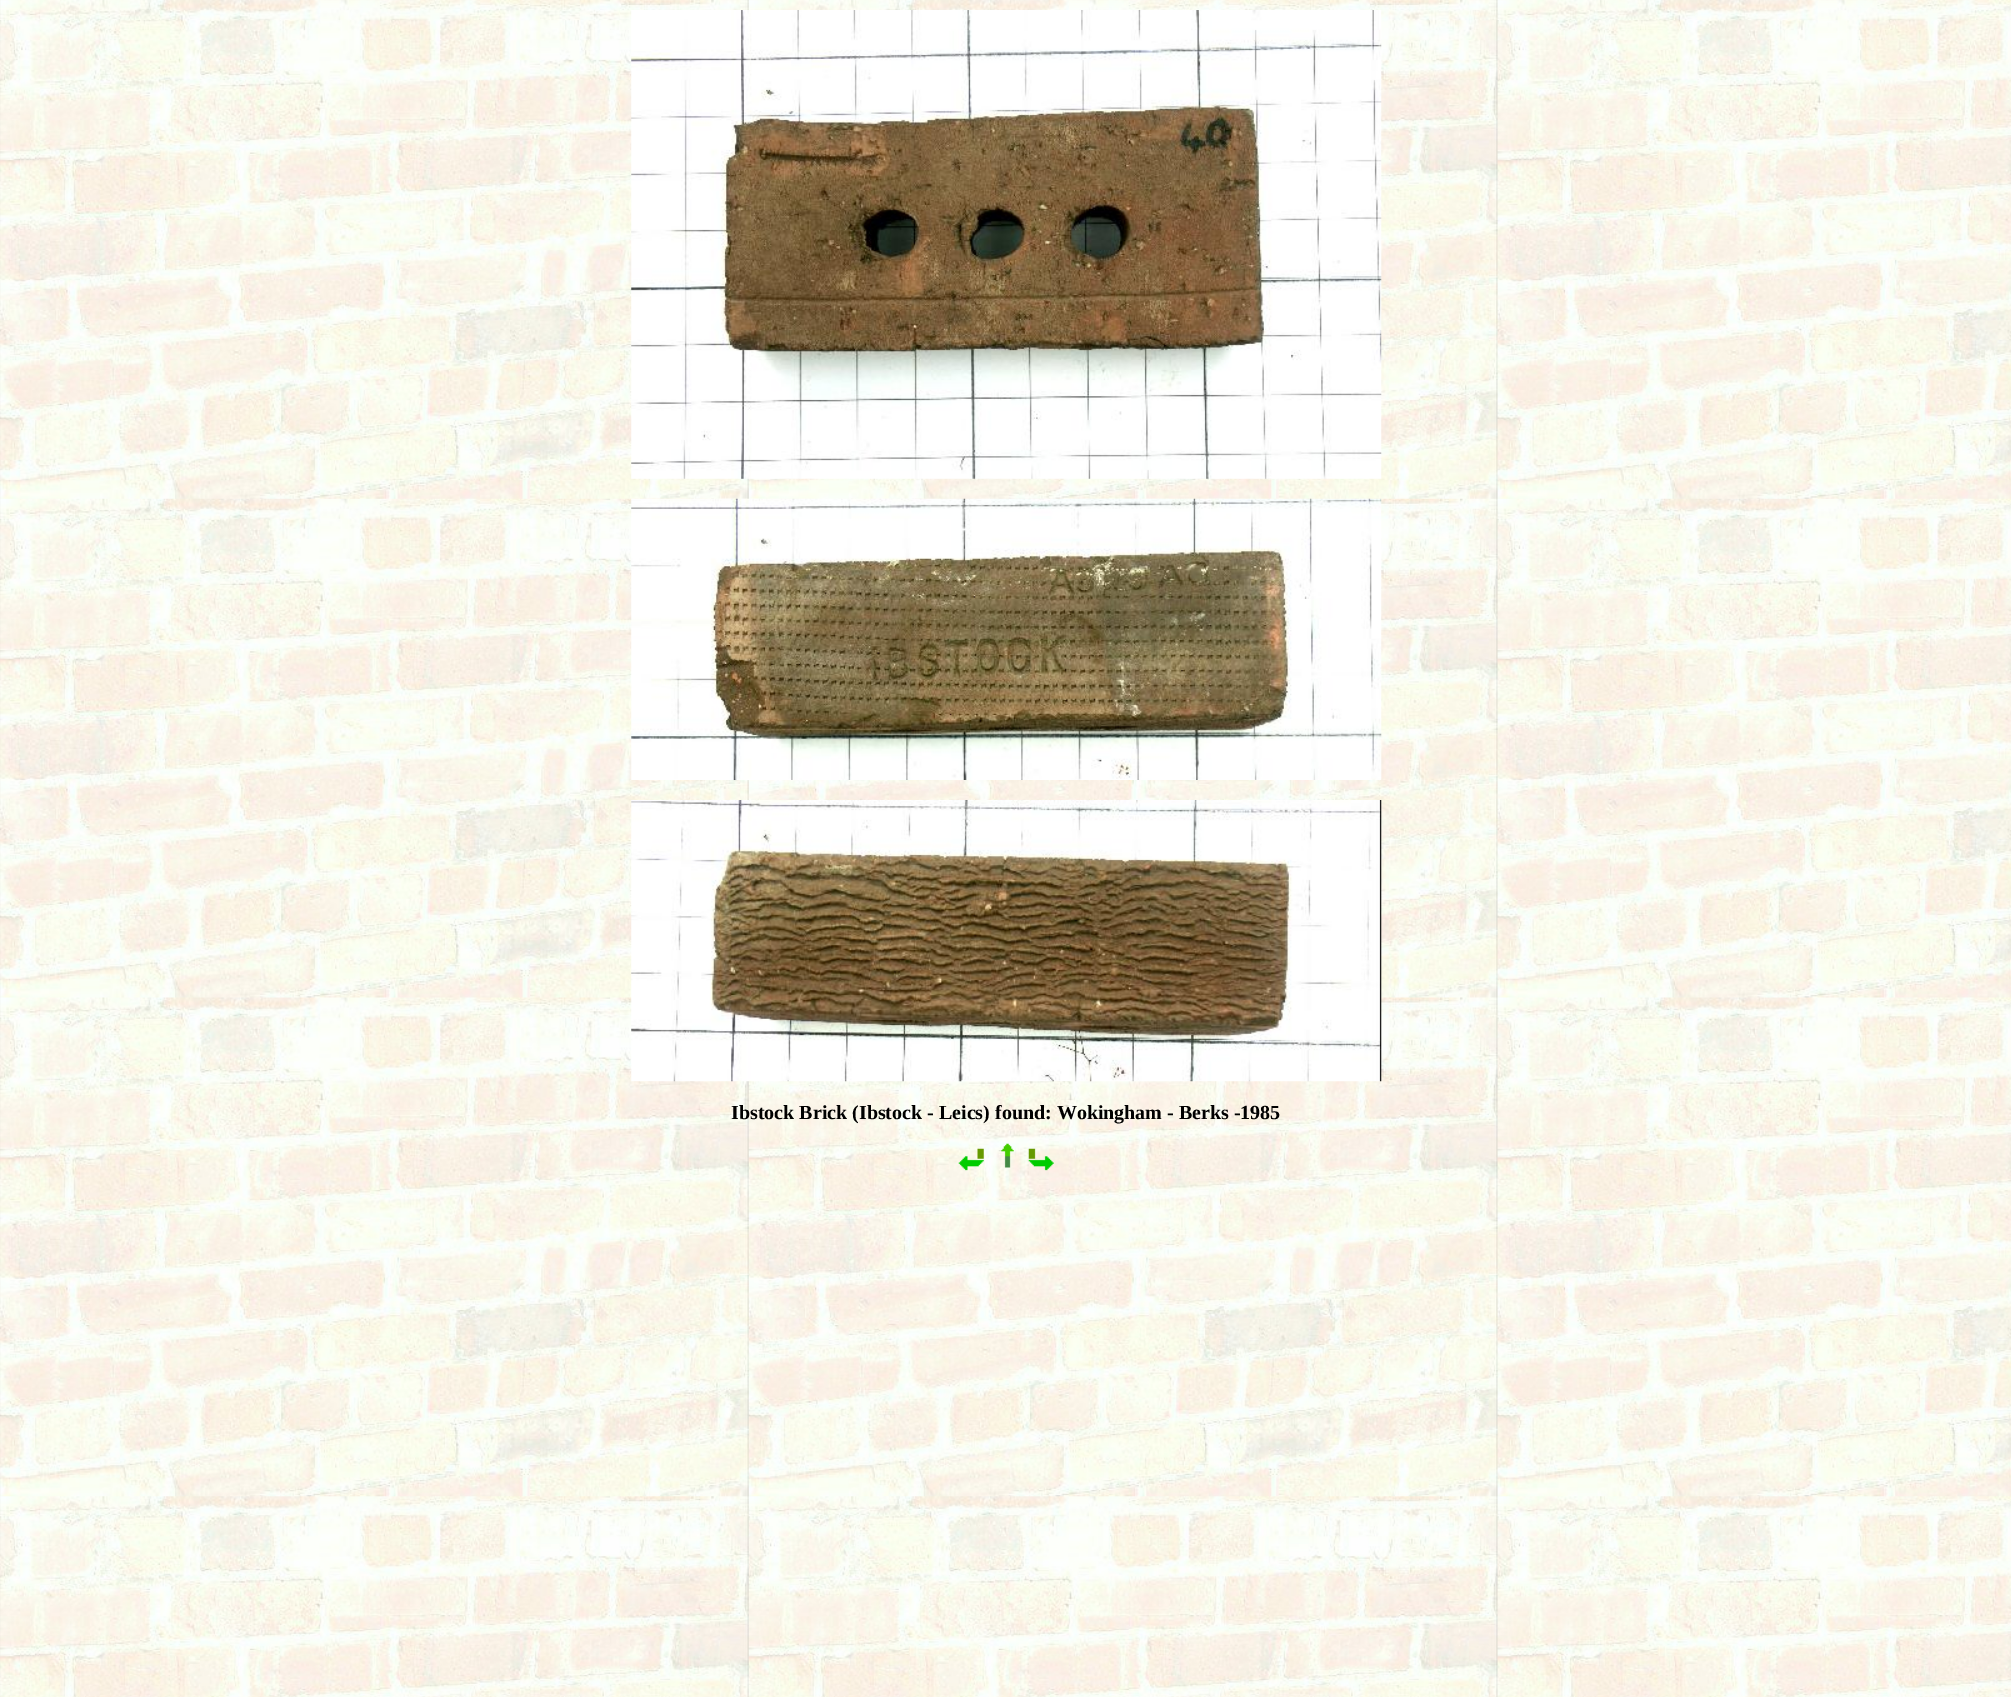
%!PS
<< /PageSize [2011 1697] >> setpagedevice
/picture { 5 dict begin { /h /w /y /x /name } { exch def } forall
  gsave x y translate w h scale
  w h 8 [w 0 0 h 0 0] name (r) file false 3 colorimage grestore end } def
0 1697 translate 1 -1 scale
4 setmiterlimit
1 setgray
0 0 2011 1697 rectfill
(img1.rgb) 0 0 2011 1697 picture
(img2.rgb) 631 10 751 469 picture
(img3.rgb) 631 498 751 282 picture
(img4.rgb) 631 800 751 282 picture
/LiberationSerif-Bold [20 0 0 -20 0 0] selectfont
0 setgray
731 1119 moveto (Ibstock Brick \(Ibstock - Leics\) found: Wokingham - Berks -1985) show
(img5.rgb) 958 1148 26 23 picture
(img6.rgb) 1001 1143 13 25 picture
(img7.rgb) 1028 1148 26 23 picture
showpage
